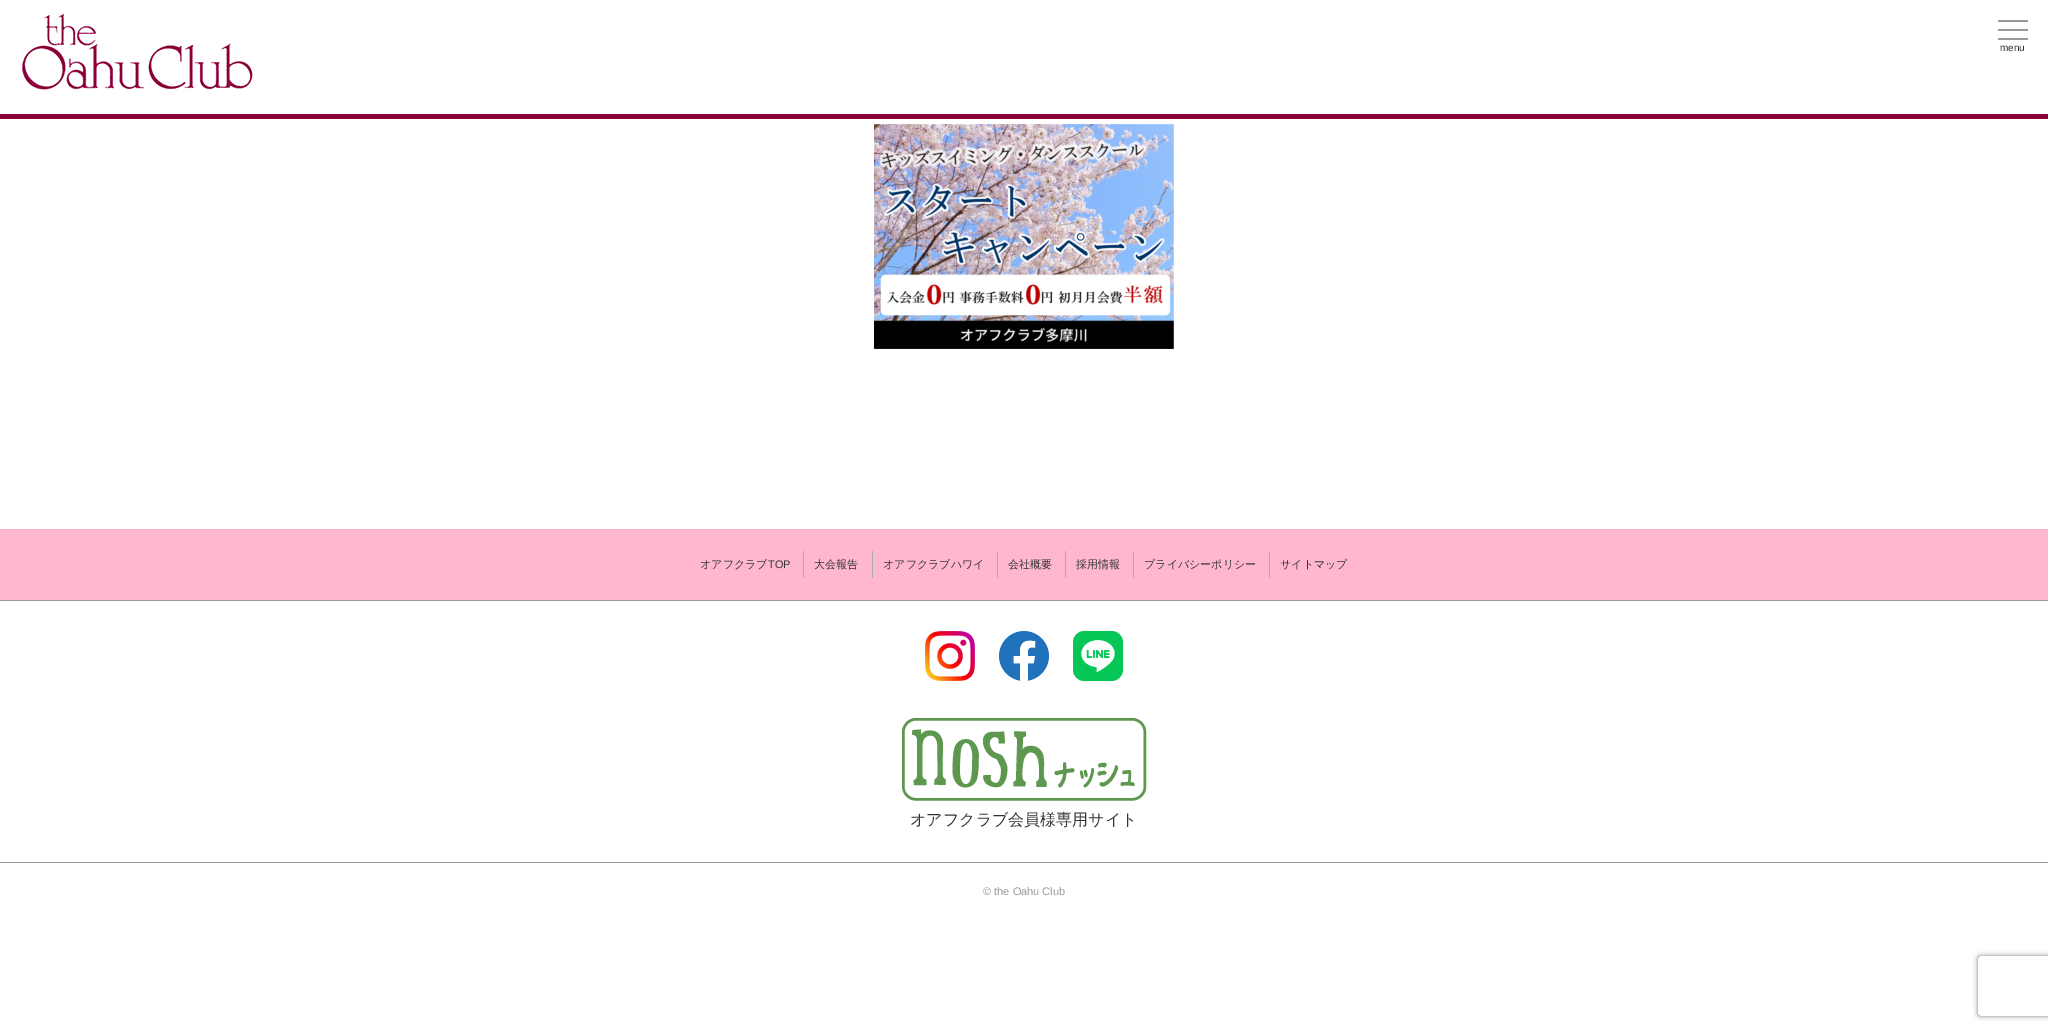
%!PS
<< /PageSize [2048 1030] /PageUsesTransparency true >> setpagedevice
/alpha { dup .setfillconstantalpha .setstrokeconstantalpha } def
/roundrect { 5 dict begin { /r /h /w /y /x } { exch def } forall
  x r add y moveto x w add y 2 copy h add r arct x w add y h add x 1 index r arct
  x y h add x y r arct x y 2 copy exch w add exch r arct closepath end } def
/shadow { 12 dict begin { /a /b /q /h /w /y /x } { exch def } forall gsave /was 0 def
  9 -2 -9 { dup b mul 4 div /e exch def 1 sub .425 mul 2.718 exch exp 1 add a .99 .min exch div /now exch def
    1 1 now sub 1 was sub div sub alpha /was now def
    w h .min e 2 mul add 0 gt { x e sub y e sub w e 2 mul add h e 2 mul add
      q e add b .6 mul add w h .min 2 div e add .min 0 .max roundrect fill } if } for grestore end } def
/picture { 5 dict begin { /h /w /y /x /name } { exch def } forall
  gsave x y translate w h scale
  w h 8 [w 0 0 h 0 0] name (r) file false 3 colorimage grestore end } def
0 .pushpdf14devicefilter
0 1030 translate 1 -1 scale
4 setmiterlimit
1 setgray
0 0 2048 1030 rectfill
0.545 0 0.22 setrgbcolor
0 114 2048 5 rectfill
(img1.rgb) 22 13 231 77 picture
0.6 setgray
1998 20 30 2 rectfill
1998 29 30 2 rectfill
1998 38 30 2 rectfill
/LiberationSans-Regular [10 0 0 -10 0 0] selectfont
0.2 setgray
2000 51 moveto (menu) show
(img2.rgb) 874 124 300 225 picture
1 0.718 0.804 setrgbcolor
0 529 2048 71 rectfill
/WenQuanYiZenHei-Medium [11 0 0 -11 0 0] selectfont
0.2 setgray
700 568 moveto (オアフクラブ) show
/LiberationSans-Regular [11 0 0 -11 0 0] selectfont
768 568 moveto (TOP) show
0.667 setgray
803 551 1 27 rectfill
/WenQuanYiZenHei-Medium [11 0 0 -11 0 0] selectfont
0.2 setgray
814 568 moveto (大会報告) show
0.667 setgray
872 551 1 27 rectfill
0.2 setgray
883 568 moveto (オアフクラブハワイ) show
0.667 setgray
997 551 1 27 rectfill
0.2 setgray
1008 568 moveto (会社概要) show
0.667 setgray
1065 551 1 27 rectfill
0.2 setgray
1076 568 moveto (採用情報) show
0.667 setgray
1133 551 1 27 rectfill
0.2 setgray
1144 568 moveto (プライバシーポリシー) show
0.667 setgray
1269 551 1 27 rectfill
0.2 setgray
1280 568 moveto (サイトマップ) show
0.6 setgray
0 600 2048 1 rectfill
(img3.rgb) 925 631 50 50 picture
(img4.rgb) 999 631 50 50 picture
(img5.rgb) 1073 631 50 50 picture
(img6.rgb) 902 718 245 83 picture
/WenQuanYiZenHei-Medium [16 0 0 -16 0 0] selectfont
0.2 setgray
910 825 moveto (オアフクラブ会員様専用サイト) show
0.6 setgray
0 862 2048 1 rectfill
/LiberationSans-Regular [11 0 0 -11 0 0] selectfont
983 895 moveto (© the Oahu Club) show
gsave
newpath 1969 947 moveto 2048 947 lineto 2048 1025 lineto 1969 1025 lineto closepath 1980 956 moveto 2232 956 lineto 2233 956 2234 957 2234 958 curveto 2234 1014 lineto 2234 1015 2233 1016 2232 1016 curveto 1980 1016 lineto 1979 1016 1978 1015 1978 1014 curveto 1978 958 lineto 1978 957 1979 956 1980 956 curveto closepath eoclip newpath
0.502 setgray
1978 956 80 60 2 2.5 1 shadow
grestore
.poppdf14devicefilter showpage
